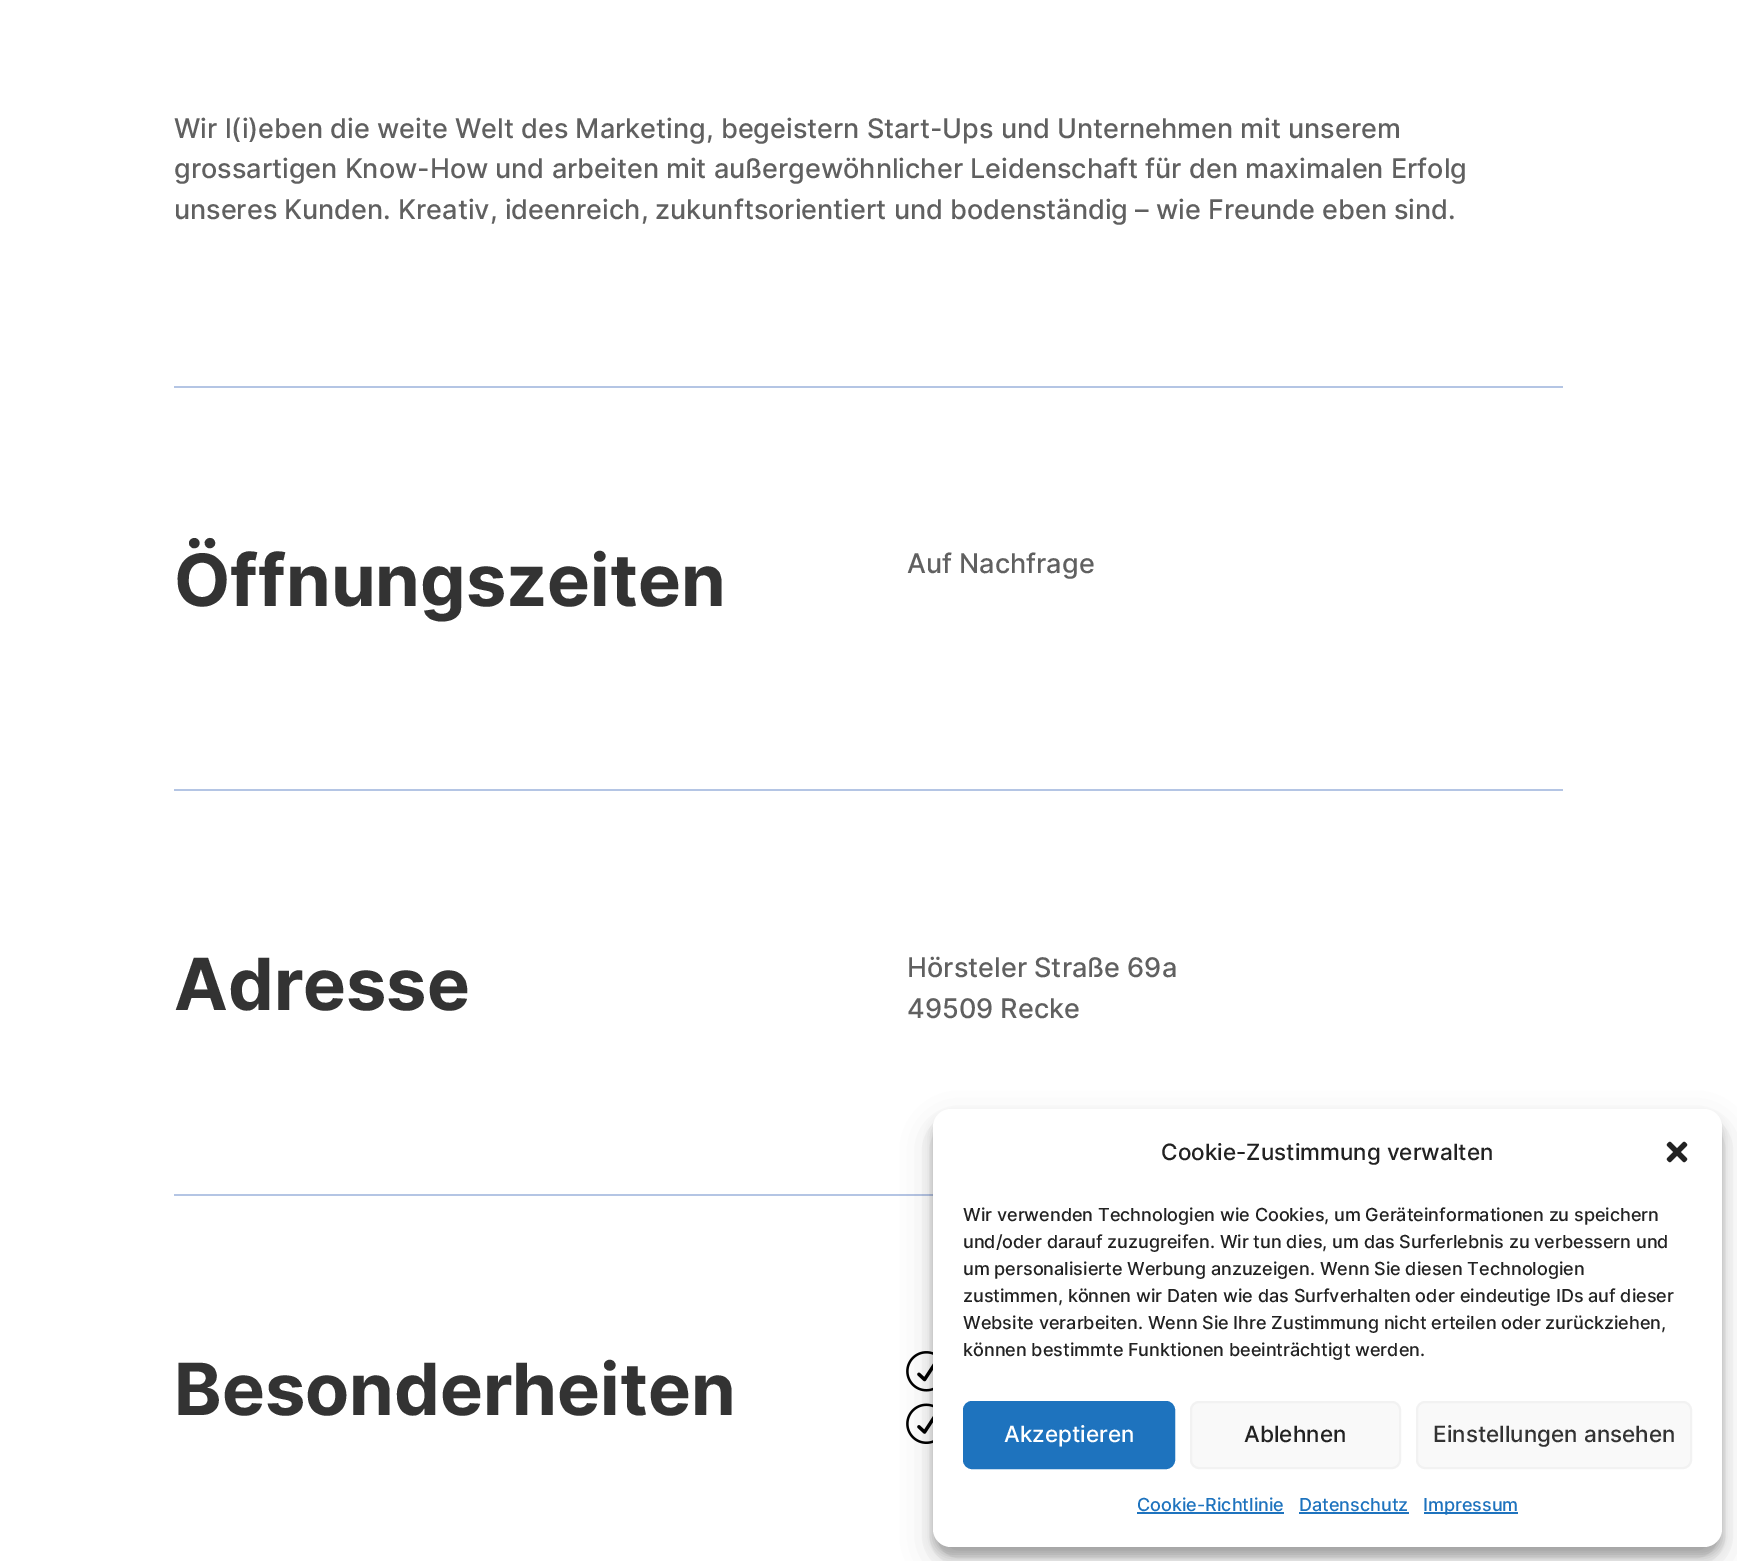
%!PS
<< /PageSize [1737 1561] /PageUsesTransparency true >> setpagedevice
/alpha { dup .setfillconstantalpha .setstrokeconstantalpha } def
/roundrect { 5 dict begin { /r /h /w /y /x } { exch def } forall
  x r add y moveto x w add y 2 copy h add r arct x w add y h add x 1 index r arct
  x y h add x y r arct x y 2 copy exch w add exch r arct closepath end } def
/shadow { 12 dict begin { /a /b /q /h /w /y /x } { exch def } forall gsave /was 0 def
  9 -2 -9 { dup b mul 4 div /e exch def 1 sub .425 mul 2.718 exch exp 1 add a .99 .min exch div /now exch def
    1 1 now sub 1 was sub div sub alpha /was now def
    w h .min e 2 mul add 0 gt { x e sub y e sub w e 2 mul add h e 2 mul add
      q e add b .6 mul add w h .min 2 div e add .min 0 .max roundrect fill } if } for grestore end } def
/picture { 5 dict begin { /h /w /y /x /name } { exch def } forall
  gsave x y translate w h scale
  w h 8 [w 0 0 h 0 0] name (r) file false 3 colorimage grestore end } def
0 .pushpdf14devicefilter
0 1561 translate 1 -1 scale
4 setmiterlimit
1 setgray
0 0 1737 1561 rectfill
/Inter-Medium [27 0 0 -27 0 0] selectfont
0.376 setgray
174 138 moveto (Wir l\(i\)eben die weite Welt des Marketing, begeistern Start-Ups und Unternehmen mit unserem) show
174 178 moveto (grossartigen Know-How und arbeiten mit außergewöhnlicher Leidenschaft für den maximalen Erfolg) show
174 219 moveto (unseres Kunden. Kreativ, ideenreich, zukunftsorientiert und bodenständig – wie Freunde eben sind.) show
0.706 0.773 0.894 setrgbcolor
174 386 1389 2 rectfill
/Inter-Bold [72 0 0 -72 0 0] selectfont
0.2 setgray
174 606 moveto (Öffnungszeiten) show
/Inter-Medium [27 0 0 -27 0 0] selectfont
0.376 setgray
907 573 moveto (Auf Nachfrage) show
0.706 0.773 0.894 setrgbcolor
174 789 1389 2 rectfill
/Inter-Bold [72 0 0 -72 0 0] selectfont
0.2 setgray
174 1010 moveto (Adresse) show
/Inter-Medium [27 0 0 -27 0 0] selectfont
0.376 setgray
907 977 moveto (Hörsteler Straße 69a) show
907 1018 moveto (49509 Recke) show
0.706 0.773 0.894 setrgbcolor
174 1194 759 2 rectfill
/Inter-Bold [72 0 0 -72 0 0] selectfont
0.2 setgray
174 1415 moveto (Besonderheiten) show
(img1.rgb) 906 1351 27 41 picture
(img2.rgb) 906 1403 27 41 picture
0 setgray
933 1118 789 438 18 4.5 0.23 shadow
933 1124 789 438 18 15 0.19 shadow
1 setgray
933 1109 789 438 18 roundrect fill
/Inter-Medium [22.5 0 0 -22.5 0 0] selectfont
0.133 setgray
1161 1160 moveto (Cookie-Zustimmung verwalten) show
(img3.rgb) 1666 1141 22 22 picture
/Inter-Medium [18 0 0 -18 0 0] selectfont
963 1221 moveto (Wir verwenden Technologien wie Cookies, um Geräteinformationen zu speichern) show
963 1248 moveto (und/oder darauf zuzugreifen. Wir tun dies, um das Surferlebnis zu verbessern und) show
963 1275 moveto (um personalisierte Werbung anzuzeigen. Wenn Sie diesen Technologien) show
963 1302 moveto (zustimmen, können wir Daten wie das Surfverhalten oder eindeutige IDs auf dieser) show
963 1329 moveto (Website verarbeiten. Wenn Sie Ihre Zustimmung nicht erteilen oder zurückziehen,) show
963 1356 moveto (können bestimmte Funktionen beeinträchtigt werden.) show
0.118 0.451 0.745 setrgbcolor
964 1402 210 66 8 roundrect gsave fill grestore
2 setlinewidth
stroke
/Inter-Medium [22.5 0 0 -22.5 0 0] selectfont
1 setgray
1004 1442 moveto (Akzeptieren) show
0.976 setgray
1191 1402 209 66 8 roundrect gsave fill grestore
0.949 setgray
stroke
0.133 setgray
1244 1442 moveto (Ablehnen) show
0.976 setgray
1417 1402 274 66 8 roundrect gsave fill grestore
0.949 setgray
stroke
0.2 setgray
1433 1442 moveto (Einstellungen ansehen) show
/Inter-Medium [18 0 0 -18 0 0] selectfont
0.118 0.451 0.745 setrgbcolor
1137 1511 moveto (Cookie-Richtlinie) show
1137 1512 147 2 rectfill
1299 1511 moveto (Datenschutz) show
1299 1512 110 2 rectfill
1424 1512 94 2 rectfill
1423 1511 moveto (Impressum) show
.poppdf14devicefilter showpage
